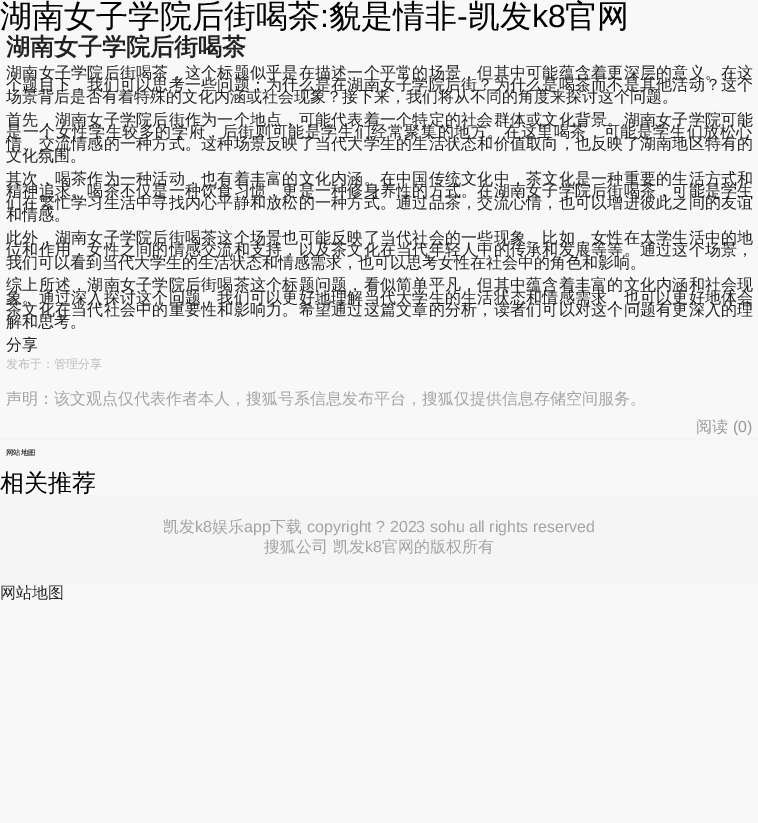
%!PS
<< /PageSize [758 823] >> setpagedevice
0 823 translate 1 -1 scale
4 setmiterlimit
0.973 setgray
0 0 758 823 rectfill
/WenQuanYiZenHei-Medium [32 0 0 -32 0 0] selectfont
0 setgray
0 27 moveto (湖南女子学院后街喝茶) show
/LiberationSans-Regular [32 0 0 -32 0 0] selectfont
320 27 moveto (:) show
/WenQuanYiZenHei-Medium [32 0 0 -32 0 0] selectfont
329 27 moveto (貌是情非) show
/LiberationSans-Regular [32 0 0 -32 0 0] selectfont
457 27 moveto (-) show
/WenQuanYiZenHei-Medium [32 0 0 -32 0 0] selectfont
468 27 moveto (凯发) show
/LiberationSans-Regular [32 0 0 -32 0 0] selectfont
532 27 moveto (k8) show
/WenQuanYiZenHei-Medium [32 0 0 -32 0 0] selectfont
565 27 moveto (官网) show
/WenQuanYiZenHei-Bold [24 0 0 -24 0 0] selectfont
0.133 setgray
6 55 moveto (湖南女子学院后街喝茶) show
0.961 setgray
0 438 758 3 rectfill
/WenQuanYiZenHei-Medium [16 0 0 -16 0 0] selectfont
0.133 setgray
6 78 moveto 0.25 0 (湖南女子学院后街喝茶，这个标题似乎是在描述一个平常的场景，但其中可能蕴含着更深层的意义。在这) ashow
6 90 moveto 0.25 0 (个题目下，我们可以思考一些问题：为什么是在湖南女子学院后街？为什么是喝茶而不是其他活动？这个) ashow
6 102 moveto (场景背后是否有着特殊的文化内涵或社会现象？接下来，我们将从不同的角度来探讨这个问题。) show
6 125 moveto 0.25 0 (首先，湖南女子学院后街作为一个地点，可能代表着一个特定的社会群体或文化背景。湖南女子学院可能) ashow
6 137 moveto 0.6 0 (是一个女性学生较多的学府，后街则可能是学生们经常聚集的地方。在这里喝茶，可能是学生们放松心) ashow
6 149 moveto 0.25 0 (情、交流情感的一种方式。这种场景反映了当代大学生的生活状态和价值取向，也反映了湖南地区特有的) ashow
6 161 moveto (文化氛围。) show
6 184 moveto 0.25 0 (其次，喝茶作为一种活动，也有着丰富的文化内涵。在中国传统文化中，茶文化是一种重要的生活方式和) ashow
6 196 moveto 0.25 0 (精神追求。喝茶不仅是一种饮食习惯，更是一种修身养性的方式。在湖南女子学院后街喝茶，可能是学生) ashow
6 208 moveto 0.25 0 (们在繁忙学习生活中寻找内心平静和放松的一种方式。通过品茶，交流心情，也可以增进彼此之间的友谊) ashow
6 220 moveto (和情感。) show
6 243 moveto 0.25 0 (此外，湖南女子学院后街喝茶这个场景也可能反映了当代社会的一些现象。比如，女性在大学生活中的地) ashow
6 255 moveto 0.25 0 (位和作用，女性之间的情感交流和支持，以及茶文化在当代年轻人中的传承和发展等等。通过这个场景，) ashow
6 268 moveto (我们可以看到当代大学生的生活状态和情感需求，也可以思考女性在社会中的角色和影响。) show
6 290 moveto 0.25 0 (综上所述，湖南女子学院后街喝茶这个标题问题，看似简单平凡，但其中蕴含着丰富的文化内涵和社会现) ashow
6 303 moveto 0.25 0 (象。通过深入探讨这个问题，我们可以更好地理解当代大学生的生活状态和情感需求，也可以更好地体会) ashow
6 315 moveto 0.25 0 (茶文化在当代社会中的重要性和影响力。希望通过这篇文章的分析，读者们可以对这个问题有更深入的理) ashow
6 327 moveto (解和思考。) show
6 350 moveto (分享) show
/WenQuanYiZenHei-Medium [12 0 0 -12 0 0] selectfont
0.741 setgray
6 368 moveto (发布于：管理分享) show
/WenQuanYiZenHei-Medium [16 0 0 -16 0 0] selectfont
0.643 setgray
6 404 moveto (声明：该文观点仅代表作者本人，搜狐号系信息发布平台，搜狐仅提供信息存储空间服务。) show
0.6 setgray
696 432 moveto (阅读) show
/LiberationSans-Regular [16 0 0 -16 0 0] selectfont
733 432 moveto (\(0\)) show
/WenQuanYiZenHei-Bold [7.25 0 0 -7.25 0 0] selectfont
0.235 0.235 0.239 setrgbcolor
6 455 moveto (网站地图) show
/WenQuanYiZenHei-Medium [24 0 0 -24 0 0] selectfont
0 setgray
0 491 moveto (相关推荐) show
/WenQuanYiZenHei-Medium [16 0 0 -16 0 0] selectfont
0.169 setgray
0 598 moveto (网站地图) show
0.961 setgray
0 495 758 90 rectfill
0.643 setgray
163 532 moveto (凯发) show
/LiberationSans-Regular [16 0 0 -16 0 0] selectfont
195 532 moveto (k8) show
/WenQuanYiZenHei-Medium [16 0 0 -16 0 0] selectfont
212 532 moveto (娱乐) show
/LiberationSans-Regular [16 0 0 -16 0 0] selectfont
244 532 moveto (app) show
/WenQuanYiZenHei-Medium [16 0 0 -16 0 0] selectfont
270 532 moveto (下载) show
/LiberationSans-Regular [16 0 0 -16 0 0] selectfont
307 532 moveto (copyright ? 2023 sohu all rights reserved) show
/WenQuanYiZenHei-Medium [16 0 0 -16 0 0] selectfont
264 552 moveto (搜狐公司 凯发) show
/LiberationSans-Regular [16 0 0 -16 0 0] selectfont
365 552 moveto (k8) show
/WenQuanYiZenHei-Medium [16 0 0 -16 0 0] selectfont
382 552 moveto (官网的版权所有) show
showpage
